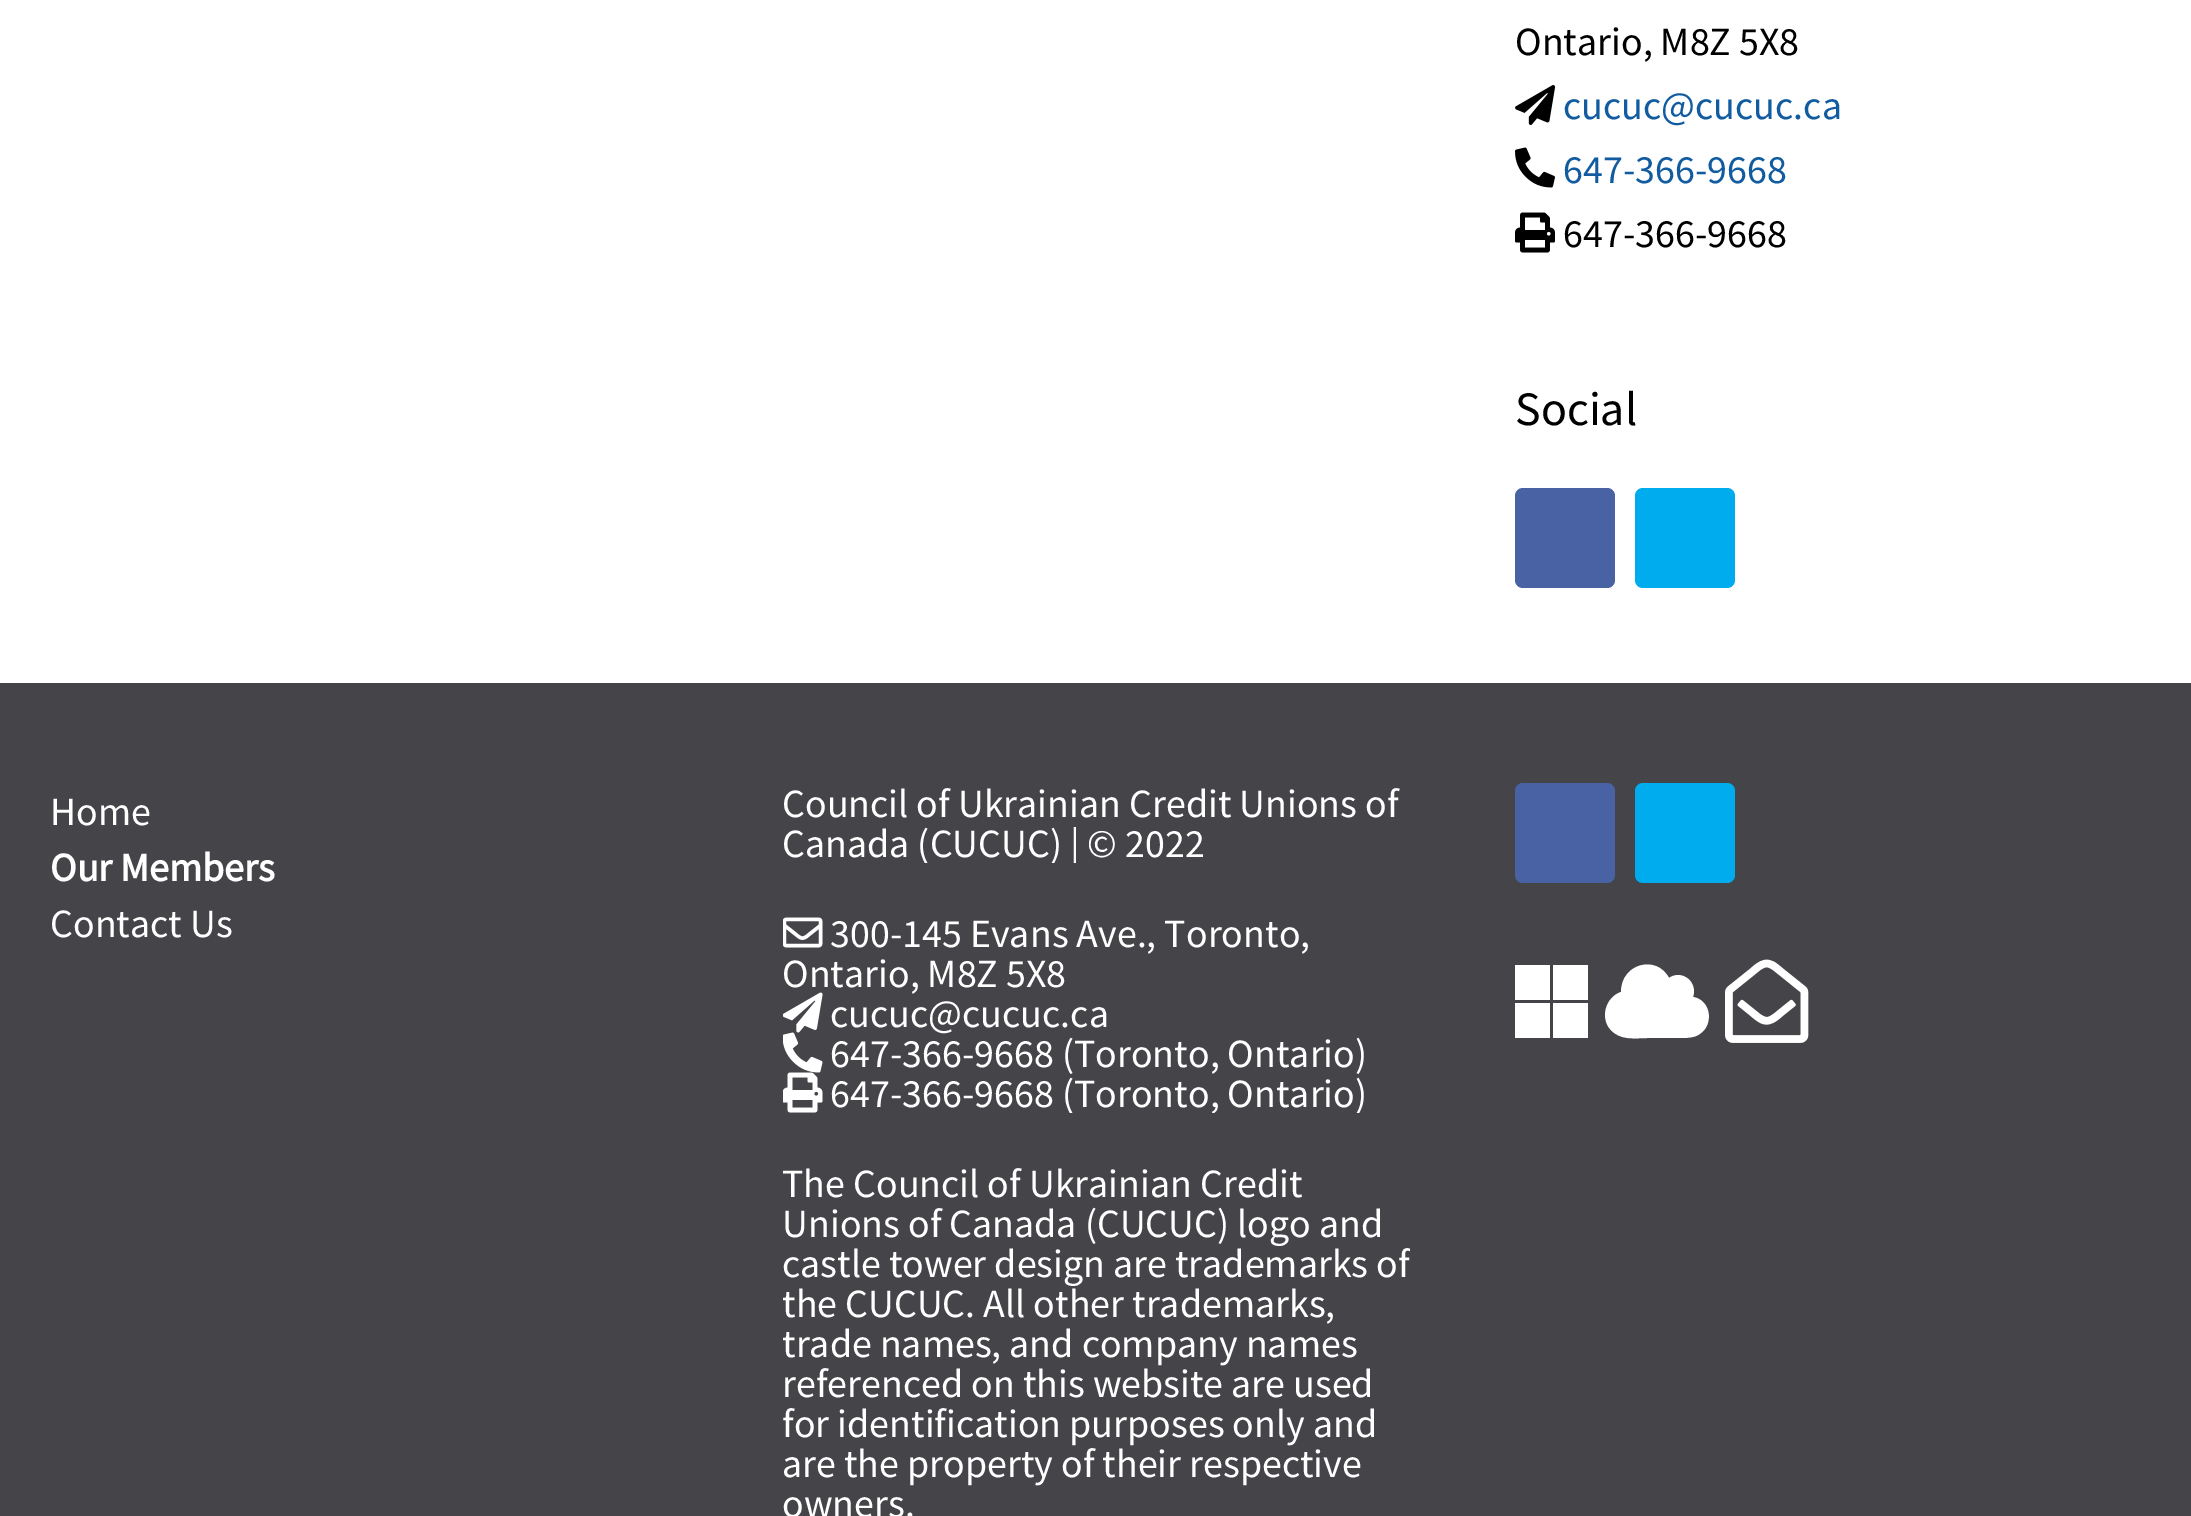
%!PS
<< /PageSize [2191 1516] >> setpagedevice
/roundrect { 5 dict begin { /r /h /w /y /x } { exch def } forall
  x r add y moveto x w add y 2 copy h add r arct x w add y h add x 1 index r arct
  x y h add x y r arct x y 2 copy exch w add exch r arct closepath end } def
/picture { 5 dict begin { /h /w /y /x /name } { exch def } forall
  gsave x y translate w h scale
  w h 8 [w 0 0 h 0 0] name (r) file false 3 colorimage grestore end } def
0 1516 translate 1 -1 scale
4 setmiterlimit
1 setgray
0 0 2191 1516 rectfill
/SourceSansPro-Regular [40 0 0 -40 0 0] selectfont
0 setgray
1515 55 moveto (Ontario, M8Z 5X8) show
(img1.rgb) 1515 85 41 40 picture
0.067 0.357 0.627 setrgbcolor
1563 119 moveto (cucuc@cucuc.ca) show
(img2.rgb) 1515 147 40 41 picture
1563 183 moveto (647-366-9668) show
(img3.rgb) 1515 212 40 41 picture
0 setgray
1563 247 moveto (647-366-9668) show
/SourceSansPro-Regular [48 0 0 -48 0 0] selectfont
1515 425 moveto (Social) show
0.282 0.384 0.639 setrgbcolor
1515 488 100 100 8 roundrect fill
0 0.675 0.933 setrgbcolor
1635 488 100 100 8 roundrect fill
0.267 0.267 0.286 setrgbcolor
0 683 2191 833 rectfill
/SourceSansPro-Regular [40 0 0 -40 0 0] selectfont
1 setgray
50 825 moveto (Home) show
/SourceSansPro-Bold [40 0 0 -40 0 0] selectfont
50 881 moveto (Our Members) show
/SourceSansPro-Regular [40 0 0 -40 0 0] selectfont
50 937 moveto (Contact Us) show
782 817 moveto (Council of Ukrainian Credit Unions of) show
gsave
783 783 627 80 rectclip
782 857 moveto (Canada \(CUCUC\) | © 2022) show
grestore
(img4.rgb) 783 917 40 31 picture
830 947 moveto (300-145 Evans Ave., Toronto,) show
782 987 moveto (Ontario, M8Z 5X8) show
(img5.rgb) 783 992 40 41 picture
830 1027 moveto (cucuc@cucuc.ca) show
(img6.rgb) 783 1032 40 41 picture
830 1067 moveto (647-366-9668 \(Toronto, Ontario\)) show
(img7.rgb) 783 1072 40 41 picture
gsave
783 913 627 200 rectclip
830 1107 moveto (647-366-9668 \(Toronto, Ontario\)) show
grestore
782 1197 moveto (The Council of Ukrainian Credit) show
782 1237 moveto (Unions of Canada \(CUCUC\) logo and) show
gsave
783 1163 627 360 rectclip
782 1277 moveto (castle tower design are trademarks of) show
grestore
782 1317 moveto (the CUCUC. All other trademarks,) show
782 1357 moveto (trade names, and company names) show
782 1397 moveto (referenced on this website are used) show
782 1437 moveto (for identification purposes only and) show
782 1477 moveto (are the property of their respective) show
782 1517 moveto (owners.) show
0.282 0.384 0.639 setrgbcolor
1515 783 100 100 8 roundrect fill
0 0.675 0.933 setrgbcolor
1635 783 100 100 8 roundrect fill
1 setgray
newpath 1515 965 moveto 1550 965 lineto 1550 1000 lineto 1515 1000 lineto closepath 1553 965 moveto 1588 965 lineto 1588 1000 lineto 1553 1000 lineto closepath 1515 1003 moveto 1550 1003 lineto 1550 1038 lineto 1515 1038 lineto closepath 1553 1003 moveto 1588 1003 lineto 1588 1038 lineto 1553 1038 lineto closepath fill
newpath 1693 997 moveto 1712 1000 1715 1028 1696 1036 curveto 1691 1038 1684 1038 1678 1038 curveto 1648 1038 lineto 1635 1038 1620 1041 1610 1029 curveto 1600 1017 1606 997 1621 992 curveto 1621 964 1656 954 1669 978 curveto 1682 969 1698 982 1693 997 curveto closepath fill
(img8.rgb) 1725 959 84 84 picture
showpage
